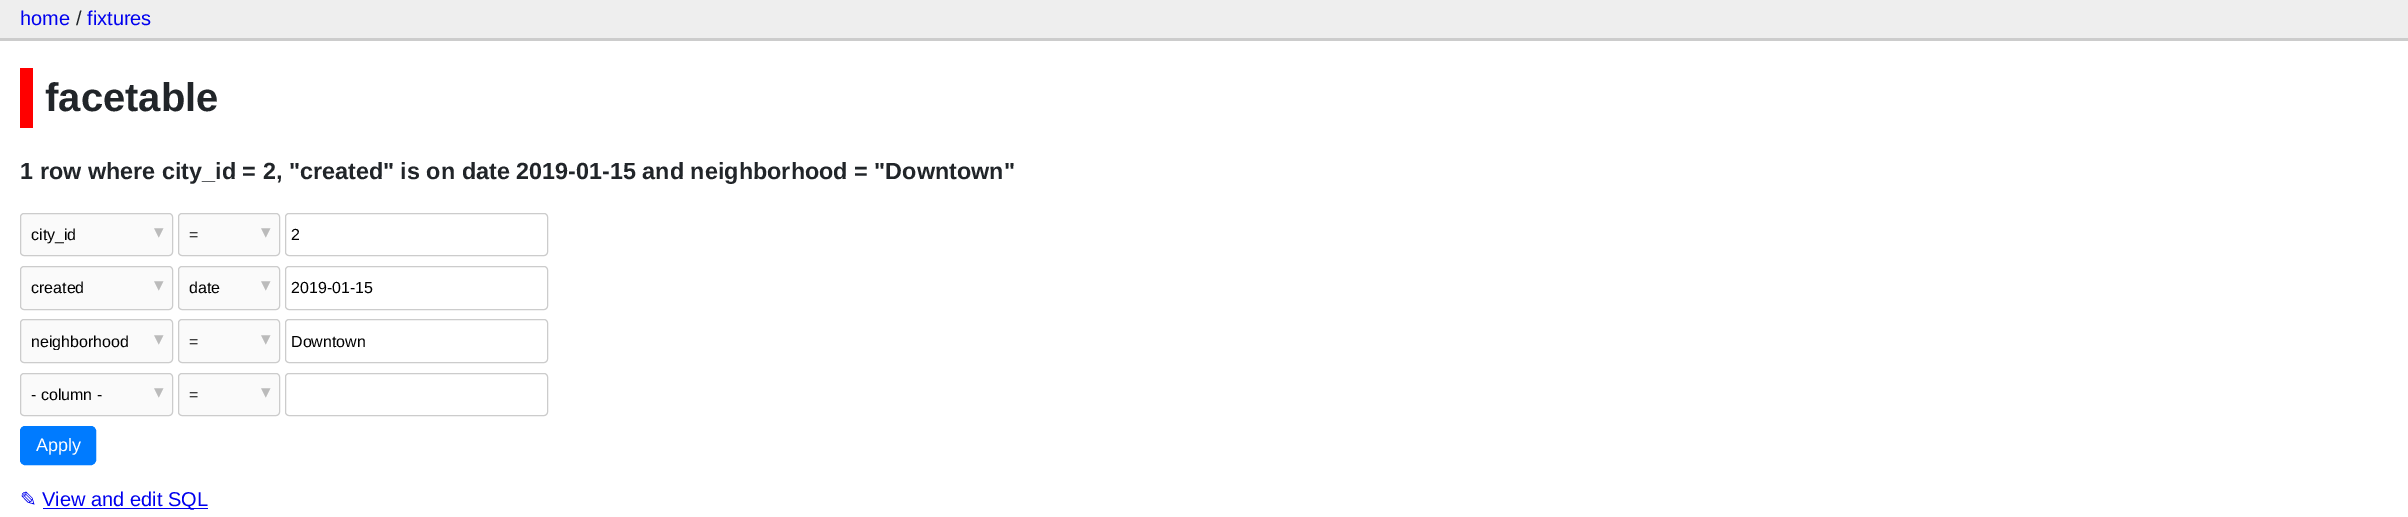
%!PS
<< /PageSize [2408 517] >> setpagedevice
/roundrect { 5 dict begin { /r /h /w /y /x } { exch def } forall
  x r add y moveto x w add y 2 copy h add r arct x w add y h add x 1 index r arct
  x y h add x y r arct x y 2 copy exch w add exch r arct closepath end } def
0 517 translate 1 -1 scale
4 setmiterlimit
1 setgray
0 0 2408 517 rectfill
0.933 setgray
0 0 2408 38 rectfill
0.8 setgray
0 38 2408 3 rectfill
/LiberationSans-Regular [20 0 0 -20 0 0] selectfont
0 0 0.933 setrgbcolor
20 25 moveto (home) show
0.129 0.145 0.161 setrgbcolor
76 25 moveto (/) show
0 0 0.933 setrgbcolor
87 25 moveto (fixtures) show
1 0 0 setrgbcolor
20 68 13 60 rectfill
/LiberationSans-Bold [40 0 0 -40 0 0] selectfont
0.129 0.145 0.161 setrgbcolor
45 111 moveto (facetable) show
/LiberationSans-Bold [23.4 0 0 -23.4 0 0] selectfont
20 179 moveto (1 row where city_id = 2, "created" is on date 2019-01-15 and neighborhood = "Downtown") show
0.98 setgray
20.5 213.5 152 42 3.5 roundrect gsave fill grestore
0.8 setgray
stroke
/LiberationSans-Regular [16 0 0 -16 0 0] selectfont
0 setgray
31 240 moveto (city_id) show
/DejaVuSans-Regular [19 0 0 -19 0 0] selectfont
0.733 setgray
154 238 moveto (▾) show
0.98 setgray
178.5 213.5 101 42 3.5 roundrect gsave fill grestore
0.8 setgray
stroke
/LiberationSans-Regular [16 0 0 -16 0 0] selectfont
0 setgray
189 240 moveto (=) show
/DejaVuSans-Regular [19 0 0 -19 0 0] selectfont
0.733 setgray
261 238 moveto (▾) show
0.8 setgray
285.5 213.5 262 42 3.5 roundrect stroke
/LiberationSans-Regular [16 0 0 -16 0 0] selectfont
0 setgray
291 240 moveto (2) show
0.98 setgray
20.5 266.5 152 43 3.5 roundrect gsave fill grestore
0.8 setgray
stroke
0 setgray
31 293 moveto (created) show
/DejaVuSans-Regular [19 0 0 -19 0 0] selectfont
0.733 setgray
154 291 moveto (▾) show
0.98 setgray
178.5 266.5 101 43 3.5 roundrect gsave fill grestore
0.8 setgray
stroke
/LiberationSans-Regular [16 0 0 -16 0 0] selectfont
0 setgray
189 293 moveto (date) show
/DejaVuSans-Regular [19 0 0 -19 0 0] selectfont
0.733 setgray
261 291 moveto (▾) show
0.8 setgray
285.5 266.5 262 43 3.5 roundrect stroke
/LiberationSans-Regular [16 0 0 -16 0 0] selectfont
0 setgray
291 293 moveto (2019-01-15) show
0.98 setgray
20.5 319.5 152 43 3.5 roundrect gsave fill grestore
0.8 setgray
stroke
gsave
31 331 130 19 rectclip
0 setgray
31 347 moveto (neighborhood) show
grestore
/DejaVuSans-Regular [19 0 0 -19 0 0] selectfont
0.733 setgray
154 345 moveto (▾) show
0.98 setgray
178.5 319.5 101 43 3.5 roundrect gsave fill grestore
0.8 setgray
stroke
/LiberationSans-Regular [16 0 0 -16 0 0] selectfont
0 setgray
189 347 moveto (=) show
/DejaVuSans-Regular [19 0 0 -19 0 0] selectfont
0.733 setgray
261 345 moveto (▾) show
0.8 setgray
285.5 319.5 262 43 3.5 roundrect stroke
/LiberationSans-Regular [16 0 0 -16 0 0] selectfont
0 setgray
291 347 moveto (Downtown) show
0.98 setgray
20.5 373.5 152 42 3.5 roundrect gsave fill grestore
0.8 setgray
stroke
0 setgray
31 400 moveto (- column -) show
/DejaVuSans-Regular [19 0 0 -19 0 0] selectfont
0.733 setgray
154 398 moveto (▾) show
0.98 setgray
178.5 373.5 101 42 3.5 roundrect gsave fill grestore
0.8 setgray
stroke
/LiberationSans-Regular [16 0 0 -16 0 0] selectfont
0 setgray
189 400 moveto (=) show
/DejaVuSans-Regular [19 0 0 -19 0 0] selectfont
0.733 setgray
261 398 moveto (▾) show
0.8 setgray
285.5 373.5 262 42 3.5 roundrect stroke
0 0.482 1 setrgbcolor
20.5 426.5 75 38 4.5 roundrect gsave fill grestore
stroke
/LiberationSans-Regular [18 0 0 -18 0 0] selectfont
1 setgray
36 451 moveto (Apply) show
/DejaVuSans-Regular [20 0 0 -20 0 0] selectfont
0 0 0.933 setrgbcolor
20 506 moveto (✎) show
43 508 165 1 rectfill
/LiberationSans-Regular [20 0 0 -20 0 0] selectfont
42 506 moveto (View and edit SQL) show
showpage
